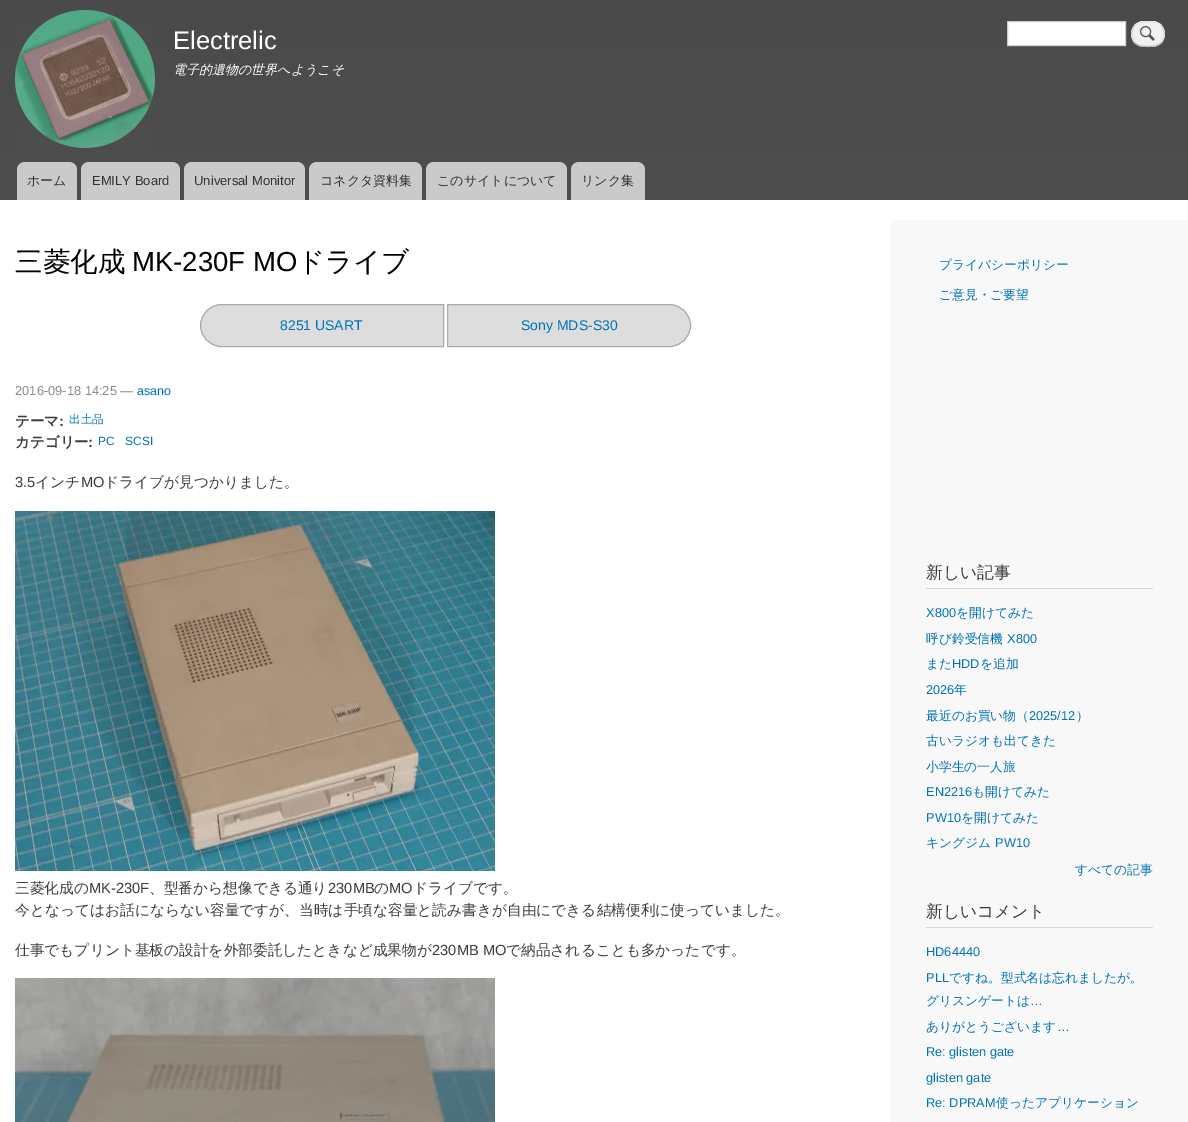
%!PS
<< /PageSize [1188 1122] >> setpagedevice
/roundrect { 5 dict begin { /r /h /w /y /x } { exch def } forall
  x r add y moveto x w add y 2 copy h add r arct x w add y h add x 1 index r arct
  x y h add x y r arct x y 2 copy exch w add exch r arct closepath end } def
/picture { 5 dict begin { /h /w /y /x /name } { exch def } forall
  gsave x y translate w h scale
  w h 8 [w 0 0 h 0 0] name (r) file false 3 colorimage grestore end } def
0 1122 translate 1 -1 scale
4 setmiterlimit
1 setgray
0 0 1188 1122 rectfill
gsave newpath 0 0 moveto 1188 0 lineto 1188 200 lineto 0 200 lineto closepath clip newpath
<< /ShadingType 2 /ColorSpace /DeviceRGB /Coords [594 0 594 200] /Extend [true true] /Function << /FunctionType 2 /Domain [0 1] /C0 [0.29 0.29 0.29] /C1 [0.306 0.306 0.306] /N 1 >> >> shfill grestore
(img1.rgb) 15 10 140 138 picture
/LiberationSans-Regular [25.5 0 0 -25.5 0 0] selectfont
173 49 moveto (Electrelic) show
/WenQuanYiZenHei-MediumItalic [13 0 0 -13 0 0] selectfont
173 74 moveto (電子的遺物の世界へようこそ) show
newpath 1007.5 21.5 moveto 1125.5 21.5 lineto 1125.5 45.5 lineto 1007.5 45.5 lineto closepath gsave fill grestore
0.8 setgray
stroke
0.941 setgray
1131 21 34 26 13 roundrect fill
(img2.rgb) 1140 26 15 15 picture
0.894 setgray
newpath 1135 25 moveto 1139 21.5 1143 21.5 1148 21.5 curveto 1153 21.5 1157 21.5 1161 25 curveto stroke
0.824 setgray
newpath 1161 25 moveto 1165.5 30 1165.5 38 1161 43 curveto stroke
0.706 setgray
newpath 1161 43 moveto 1157 46.5 1153 46.5 1148 46.5 curveto 1143 46.5 1139 46.5 1135 43 curveto stroke
0.824 setgray
newpath 1135 43 moveto 1130.5 38 1130.5 30 1135 25 curveto stroke
0.792 setgray
newpath 25 162 moveto 69 162 lineto 73.5 162 77 165.5 77 170 curveto 77 200 lineto 17 200 lineto 17 170 lineto 17 165.5 20.5 162 25 162 curveto closepath fill
/WenQuanYiZenHei-Medium [13 0 0 -13 0 0] selectfont
0.2 setgray
27 185 moveto (ホーム) show
0.792 setgray
newpath 89 162 moveto 172 162 lineto 176.5 162 180 165.5 180 170 curveto 180 200 lineto 81 200 lineto 81 170 lineto 81 165.5 84.5 162 89 162 curveto closepath fill
/LiberationSans-Regular [13 0 0 -13 0 0] selectfont
0.2 setgray
92 185 moveto (EMILY Board) show
0.792 setgray
newpath 192 162 moveto 297 162 lineto 301.5 162 305 165.5 305 170 curveto 305 200 lineto 184 200 lineto 184 170 lineto 184 165.5 187.5 162 192 162 curveto closepath fill
0.2 setgray
194 185 moveto (Universal Monitor) show
0.792 setgray
newpath 317 162 moveto 414 162 lineto 418.5 162 422 165.5 422 170 curveto 422 200 lineto 309 200 lineto 309 170 lineto 309 165.5 312.5 162 317 162 curveto closepath fill
/WenQuanYiZenHei-Medium [13 0 0 -13 0 0] selectfont
0.2 setgray
320 185 moveto (コネクタ資料集) show
0.792 setgray
newpath 434 162 moveto 559 162 lineto 563.5 162 567 165.5 567 170 curveto 567 200 lineto 426 200 lineto 426 170 lineto 426 165.5 429.5 162 434 162 curveto closepath fill
0.2 setgray
437 185 moveto (このサイトについて) show
0.792 setgray
newpath 579 162 moveto 637 162 lineto 641.5 162 645 165.5 645 170 curveto 645 200 lineto 571 200 lineto 571 170 lineto 571 165.5 574.5 162 579 162 curveto closepath fill
0.2 setgray
581 185 moveto (リンク集) show
/WenQuanYiZenHei-Medium [27.5 0 0 -27.5 0 0] selectfont
0 setgray
15 271 moveto (三菱化成) show
/LiberationSans-Regular [27.5 0 0 -27.5 0 0] selectfont
132 271 moveto (MK-230F MO) show
/WenQuanYiZenHei-Medium [27.5 0 0 -27.5 0 0] selectfont
297 271 moveto (ドライブ) show
0.867 setgray
newpath 221.5 304.5 moveto 443.5 304.5 lineto 443.5 346.5 lineto 221.5 346.5 lineto 210 346.5 200.5 337 200.5 325.5 curveto 200.5 314 210 304.5 221.5 304.5 curveto closepath gsave fill grestore
0.667 setgray
stroke
/LiberationSans-Regular [14 0 0 -14 0 0] selectfont
0 0.451 0.714 setrgbcolor
280 330 moveto (8251 USART) show
0.867 setgray
newpath 447.5 304.5 moveto 669.5 304.5 lineto 681 304.5 690.5 314 690.5 325.5 curveto 690.5 337 681 346.5 669.5 346.5 curveto 447.5 346.5 lineto closepath gsave fill grestore
0.667 setgray
stroke
0 0.451 0.714 setrgbcolor
521 330 moveto (Sony MDS-S30) show
/LiberationSans-Regular [12.9 0 0 -12.9 0 0] selectfont
0.537 setgray
15 395 moveto (2016-09-18 14:25 —) show
/LiberationSans-Regular [12.5 0 0 -12.5 0 0] selectfont
0 0.451 0.714 setrgbcolor
137 395 moveto (asano) show
/WenQuanYiZenHei-Bold [14.5 0 0 -14.5 0 0] selectfont
0.231 setgray
15 426 moveto (テーマ) show
/LiberationSans-Bold [14.5 0 0 -14.5 0 0] selectfont
59 426 moveto (:) show
/WenQuanYiZenHei-Medium [11.5 0 0 -11.5 0 0] selectfont
0 0.451 0.714 setrgbcolor
69 423 moveto (出土品) show
/WenQuanYiZenHei-Bold [14.5 0 0 -14.5 0 0] selectfont
0.231 setgray
15 447 moveto (カテゴリー) show
/LiberationSans-Bold [14.5 0 0 -14.5 0 0] selectfont
88 447 moveto (:) show
/LiberationSans-Regular [12 0 0 -12 0 0] selectfont
0 0.451 0.714 setrgbcolor
98 445 moveto (PC) show
125 445 moveto (SCSI) show
/LiberationSans-Regular [14.7 0 0 -14.7 0 0] selectfont
0.231 setgray
15 487 moveto (3.5) show
/WenQuanYiZenHei-Medium [14.7 0 0 -14.7 0 0] selectfont
35 487 moveto (インチ) show
/LiberationSans-Regular [14.7 0 0 -14.7 0 0] selectfont
81 487 moveto (MO) show
/WenQuanYiZenHei-Medium [14.7 0 0 -14.7 0 0] selectfont
104 487 moveto (ドライブが見つかりました。) show
(img3.rgb) 15 511 480 360 picture
15 893 moveto (三菱化成の) show
/LiberationSans-Regular [14.7 0 0 -14.7 0 0] selectfont
89 893 moveto (MK-230F) show
/WenQuanYiZenHei-Medium [14.7 0 0 -14.7 0 0] selectfont
149 893 moveto (、型番から想像できる通り) show
/LiberationSans-Regular [14.7 0 0 -14.7 0 0] selectfont
328 893 moveto (230MB) show
/WenQuanYiZenHei-Medium [14.7 0 0 -14.7 0 0] selectfont
374 893 moveto (の) show
/LiberationSans-Regular [14.7 0 0 -14.7 0 0] selectfont
389 893 moveto (MO) show
/WenQuanYiZenHei-Medium [14.7 0 0 -14.7 0 0] selectfont
413 893 moveto (ドライブです。) show
15 915 moveto (今となってはお話にならない容量ですが、当時は手頃な容量と読み書きが自由にできる結構便利に使っていました。) show
15 955 moveto (仕事でもプリント基板の設計を外部委託したときなど成果物が) show
/LiberationSans-Regular [14.7 0 0 -14.7 0 0] selectfont
432 955 moveto (230MB MO) show
/WenQuanYiZenHei-Medium [14.7 0 0 -14.7 0 0] selectfont
506 955 moveto (で納品されることも多かったです。) show
(img4.rgb) 15 978 480 144 picture
0.973 setgray
891 220 297 902 rectfill
/WenQuanYiZenHei-Medium [12.75 0 0 -12.75 0 0] selectfont
0 0.451 0.714 setrgbcolor
939 269 moveto (プライバシーポリシー) show
939 299 moveto (ご意見・ご要望) show
0.839 setgray
926 588 227 1 rectfill
/WenQuanYiZenHei-Medium [16.75 0 0 -16.75 0 0] selectfont
0.231 setgray
926 578 moveto (新しい記事) show
/LiberationSans-Regular [12.75 0 0 -12.75 0 0] selectfont
0 0.451 0.714 setrgbcolor
926 617 moveto (X800) show
/WenQuanYiZenHei-Medium [12.75 0 0 -12.75 0 0] selectfont
956 617 moveto (を開けてみた) show
926 643 moveto (呼び鈴受信機) show
/LiberationSans-Regular [12.75 0 0 -12.75 0 0] selectfont
1007 643 moveto (X800) show
/WenQuanYiZenHei-Medium [12.75 0 0 -12.75 0 0] selectfont
926 668 moveto (また) show
/LiberationSans-Regular [12.75 0 0 -12.75 0 0] selectfont
952 668 moveto (HDD) show
/WenQuanYiZenHei-Medium [12.75 0 0 -12.75 0 0] selectfont
980 668 moveto (を追加) show
/LiberationSans-Regular [12.75 0 0 -12.75 0 0] selectfont
926 694 moveto (2026) show
/WenQuanYiZenHei-Medium [12.75 0 0 -12.75 0 0] selectfont
954 694 moveto (年) show
926 720 moveto (最近のお買い物（) show
/LiberationSans-Regular [12.75 0 0 -12.75 0 0] selectfont
1029 720 moveto (2025/12) show
/WenQuanYiZenHei-Medium [12.75 0 0 -12.75 0 0] selectfont
1076 720 moveto (）) show
926 745 moveto (古いラジオも出てきた) show
926 771 moveto (小学生の一人旅) show
/LiberationSans-Regular [12.75 0 0 -12.75 0 0] selectfont
926 796 moveto (EN2216) show
/WenQuanYiZenHei-Medium [12.75 0 0 -12.75 0 0] selectfont
972 796 moveto (も開けてみた) show
/LiberationSans-Regular [12.75 0 0 -12.75 0 0] selectfont
926 822 moveto (PW10) show
/WenQuanYiZenHei-Medium [12.75 0 0 -12.75 0 0] selectfont
961 822 moveto (を開けてみた) show
926 847 moveto (キングジム) show
/LiberationSans-Regular [12.75 0 0 -12.75 0 0] selectfont
995 847 moveto (PW10) show
/WenQuanYiZenHei-Medium [12.75 0 0 -12.75 0 0] selectfont
1075 874 moveto (すべての記事) show
0.839 setgray
926 927 227 1 rectfill
/WenQuanYiZenHei-Medium [16.75 0 0 -16.75 0 0] selectfont
0.231 setgray
926 917 moveto (新しいコメント) show
/LiberationSans-Regular [12.75 0 0 -12.75 0 0] selectfont
0 0.451 0.714 setrgbcolor
926 956 moveto (HD64440) show
926 982 moveto (PLL) show
/WenQuanYiZenHei-Medium [12.75 0 0 -12.75 0 0] selectfont
949 982 moveto (ですね。型式名は忘れましたが。) show
926 1005 moveto (グリスンゲートは) show
/LiberationSans-Regular [12.75 0 0 -12.75 0 0] selectfont
1030 1005 moveto (…) show
/WenQuanYiZenHei-Medium [12.75 0 0 -12.75 0 0] selectfont
926 1031 moveto (ありがとうございます) show
/LiberationSans-Regular [12.75 0 0 -12.75 0 0] selectfont
1057 1031 moveto (…) show
926 1056 moveto (Re: glisten gate) show
926 1082 moveto (glisten gate) show
926 1107 moveto (Re: DPRAM) show
/WenQuanYiZenHei-Medium [12.75 0 0 -12.75 0 0] selectfont
996 1107 moveto (使ったアプリケーション) show
showpage
